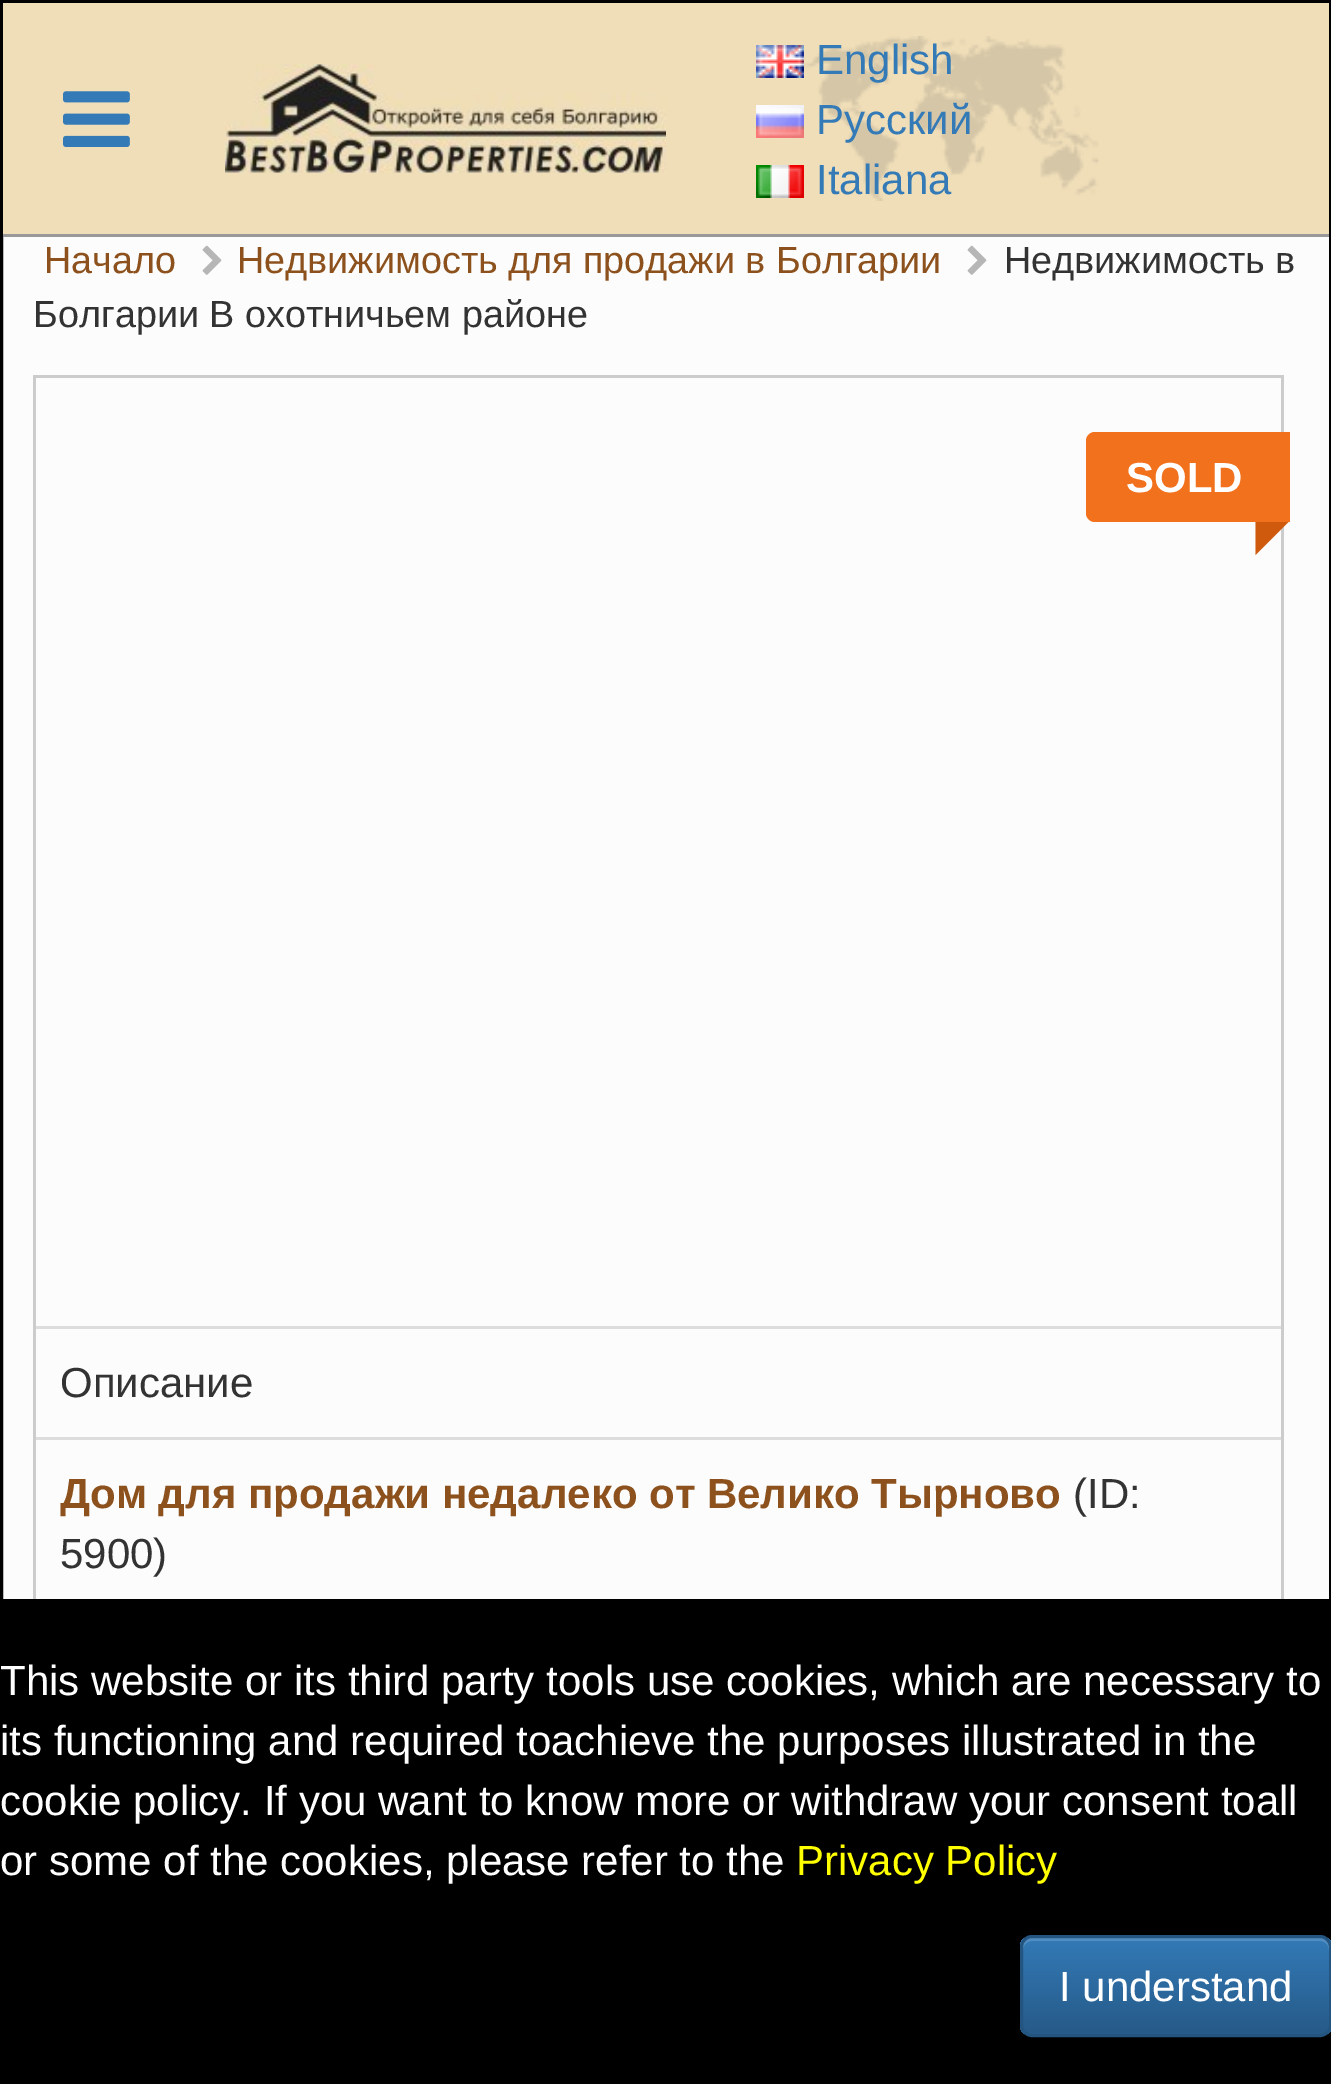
%!PS
<< /PageSize [1331 2084] /PageUsesTransparency true >> setpagedevice
/alpha { dup .setfillconstantalpha .setstrokeconstantalpha } def
/roundrect { 5 dict begin { /r /h /w /y /x } { exch def } forall
  x r add y moveto x w add y 2 copy h add r arct x w add y h add x 1 index r arct
  x y h add x y r arct x y 2 copy exch w add exch r arct closepath end } def
/picture { 5 dict begin { /h /w /y /x /name } { exch def } forall
  gsave x y translate w h scale
  w h 8 [w 0 0 h 0 0] name (r) file false 3 colorimage grestore end } def
0 .pushpdf14devicefilter
0 2084 translate 1 -1 scale
4 setmiterlimit
0.988 setgray
0 0 1331 2084 rectfill
0 setgray
3 setlinewidth
1.5 1.5 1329 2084 rectstroke
0.941 0.871 0.722 setrgbcolor
3 3 1326 231 rectfill
0.6 setgray
3 234 1326 3 rectfill
(img1.rgb) 63 91 67 56 picture
(img2.rgb) 225 64 441 109 picture
(img3.rgb) 804 36 295 165 picture
(img4.rgb) 756 45 48 33 picture
/LiberationSans-Regular [42 0 0 -42 0 0] selectfont
0.2 0.478 0.718 setrgbcolor
816 74 moveto (English) show
(img5.rgb) 756 105 48 33 picture
816 134 moveto (Русский) show
(img6.rgb) 756 165 48 33 picture
816 194 moveto (Italiana) show
/LiberationSans-Regular [37.75 0 0 -37.75 0 0] selectfont
0.549 0.318 0.11 setrgbcolor
44 273 moveto (Начало) show
(img7.rgb) 202 245 20 30 picture
237 273 moveto (Недвижимость для продажи в Болгарии) show
(img7.rgb) 967 245 20 30 picture
0.2 setgray
1004 273 moveto (Недвижимость в) show
33 327 moveto (Болгарии В охотничьем районе) show
0.8 setgray
33 375 1251 3 rectfill
1281 375 3 1224 rectfill
33 375 3 1224 rectfill
0.949 0.443 0.11 setrgbcolor
newpath 1095 432 moveto 1290 432 lineto 1290 522 lineto 1095 522 lineto 1090 522 1086 518 1086 513 curveto 1086 441 lineto 1086 436 1090 432 1095 432 curveto closepath fill
/LiberationSans-Bold [42 0 0 -42 0 0] selectfont
1 setgray
1126 492 moveto (SOLD) show
0.812 0.349 0.047 setrgbcolor
newpath 1255.5 522 moveto 1288.5 522 lineto 1255.5 555 lineto closepath fill
0.867 setgray
36 1326 1245 3 rectfill
/LiberationSans-Regular [42 0 0 -42 0 0] selectfont
0.2 setgray
60 1397 moveto (Описание) show
0.867 setgray
36 1437 1245 3 rectfill
/LiberationSans-Bold [42 0 0 -42 0 0] selectfont
0.549 0.318 0.11 setrgbcolor
60 1508 moveto (Дом для продажи недалеко от Велико Тырново) show
/LiberationSans-Regular [42 0 0 -42 0 0] selectfont
0.2 setgray
1073 1508 moveto (\(ID:) show
60 1568 moveto (5900\)) show
0 setgray
3 1599 1326 485 rectfill
1 setgray
0 1695 moveto (This website or its third party tools use cookies, which are necessary to) show
0 1755 moveto (its functioning and required toachieve the purposes illustrated in the) show
0 1815 moveto (cookie policy. If you want to know more or withdraw your consent toall) show
0 1875 moveto (or some of the cookies, please refer to the) show
1 1 0 setrgbcolor
796 1875 moveto (Privacy Policy) show
gsave
1020 1935 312 102 12 roundrect clip newpath
gsave newpath 1020 1938 moveto 1331 1938 lineto 1331 2034 lineto 1020 2034 lineto closepath clip newpath
<< /ShadingType 2 /ColorSpace /DeviceRGB /Coords [1176 1938 1176 2034] /Extend [true true] /Function << /FunctionType 2 /Domain [0 1] /C0 [0.2 0.478 0.718] /C1 [0.149 0.353 0.533] /N 1 >> >> shfill grestore
grestore
0.15 alpha
1 setgray
newpath 1032 1941 moveto 1320 1941 lineto 1325 1941 1329 1945 1329 1950 curveto 1329 1947 lineto 1329 1942 1325 1938 1320 1938 curveto 1032 1938 lineto 1027 1938 1023 1942 1023 1947 curveto 1023 1950 lineto 1023 1945 1027 1941 1032 1941 curveto closepath fill
1 alpha
0.141 0.333 0.502 setrgbcolor
1021.5 1936.5 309 99 10.5 roundrect stroke
1 setgray
1059 2001 moveto (I understand) show
.poppdf14devicefilter showpage
